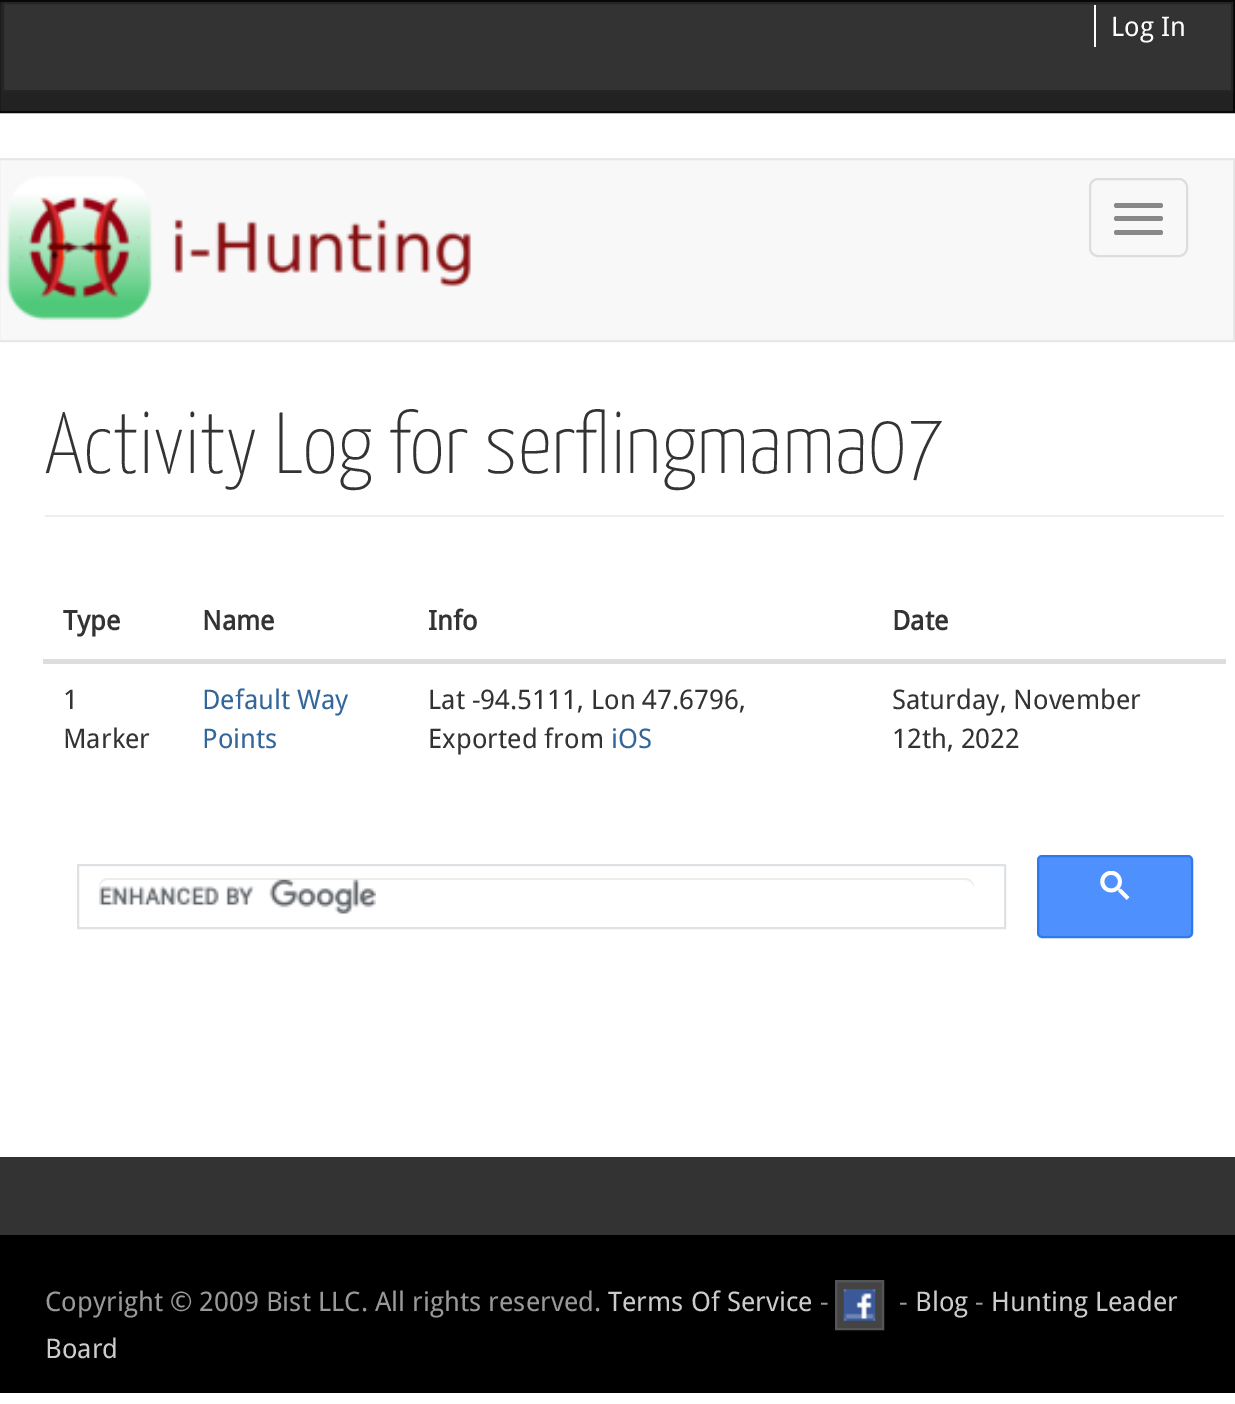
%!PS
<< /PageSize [1235 1404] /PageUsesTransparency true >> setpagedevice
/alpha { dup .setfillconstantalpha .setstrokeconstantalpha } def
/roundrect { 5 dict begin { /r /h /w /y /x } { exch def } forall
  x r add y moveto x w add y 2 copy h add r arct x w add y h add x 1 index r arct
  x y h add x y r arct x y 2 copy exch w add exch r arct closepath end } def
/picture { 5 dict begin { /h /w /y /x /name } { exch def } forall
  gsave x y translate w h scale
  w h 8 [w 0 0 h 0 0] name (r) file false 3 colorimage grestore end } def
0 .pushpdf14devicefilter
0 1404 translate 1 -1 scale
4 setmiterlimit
1 setgray
0 0 1235 1404 rectfill
0.133 setgray
newpath -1 1 moveto 1234 1 lineto 1234 112 lineto -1 112 lineto closepath gsave fill grestore
0.031 setgray
2 setlinewidth
stroke
0.2 setgray
newpath 3 3 moveto 1232 3 lineto 1232 91 lineto 3 91 lineto closepath gsave fill grestore
0.145 setgray
stroke
1 setgray
1094 5 2 42 rectfill
/DroidSans-Regular [27 0 0 -27 0 0] selectfont
1111 36 moveto (Log In) show
0.973 setgray
newpath -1 159 moveto 1234 159 lineto 1234 341 lineto -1 341 lineto closepath gsave fill grestore
0.906 setgray
stroke
(img1.rgb) 6 176 465 145 picture
0.867 setgray
1090 179 97 77 8 roundrect stroke
0.533 setgray
1114 203 49 5 2.5 roundrect fill
1114 216 49 5 2.5 roundrect fill
1114 230 49 5 2.5 roundrect fill
0.933 setgray
45 515 1179 2 rectfill
/YanoneKaffeesatz-Thin [86.6 0 0 -86.6 0 0] selectfont
0.2 setgray
45 473 moveto (Activity Log for serflingmama07) show
/DroidSans-Bold [27 0 0 -27 0 0] selectfont
63 630 moveto (Type) show
202 630 moveto (Name) show
428 630 moveto (Info) show
0.867 setgray
43 659 1183 5 rectfill
0.2 setgray
892 630 moveto (Date) show
/DroidSans-Regular [27 0 0 -27 0 0] selectfont
63 709 moveto (1) show
63 748 moveto (Marker) show
0.2 0.4 0.6 setrgbcolor
202 709 moveto (Default Way) show
202 748 moveto (Points) show
0.2 setgray
428 709 moveto (Lat -94.5111, Lon 47.6796,) show
428 748 moveto (Exported from) show
0.2 0.4 0.6 setrgbcolor
611 748 moveto (iOS) show
0.2 setgray
892 709 moveto (Saturday, November) show
892 748 moveto (12th, 2022) show
0.875 0.882 0.898 setrgbcolor
78 865 927 63 rectstroke
(img2.rgb) 99 879 277 35 picture
0.07 alpha
0 setgray
newpath 108 880 moveto 965 880 lineto 970 880 974 884 974 889 curveto 974 887 lineto 974 882 970 878 965 878 curveto 108 878 lineto 103 878 99 882 99 887 curveto 99 889 lineto 99 884 103 880 108 880 curveto closepath fill
1 alpha
0.302 0.565 0.996 setrgbcolor
1038 856 154 81 4 roundrect gsave fill grestore
0.188 0.475 0.929 setrgbcolor
stroke
(img3.rgb) 1100 871 30 29 picture
0.2 setgray
0 1157 1235 78 rectfill
0 setgray
0 1235 1235 158 rectfill
0.267 setgray
newpath 836 1281 moveto 883 1281 lineto 883 1329 lineto 836 1329 lineto closepath gsave fill grestore
0.333 setgray
stroke
0.6 setgray
45 1311 moveto (Copyright © 2009 Bist LLC. All rights reserved.) show
0.8 setgray
608 1311 moveto (Terms Of Service) show
0.6 setgray
820 1311 moveto (-) show
(img4.rgb) 843 1289 33 32 picture
899 1311 moveto (-) show
0.8 setgray
915 1311 moveto (Blog) show
0.6 setgray
975 1311 moveto (-) show
0.8 setgray
991 1311 moveto (Hunting Leader) show
45 1358 moveto (Board) show
.poppdf14devicefilter showpage
